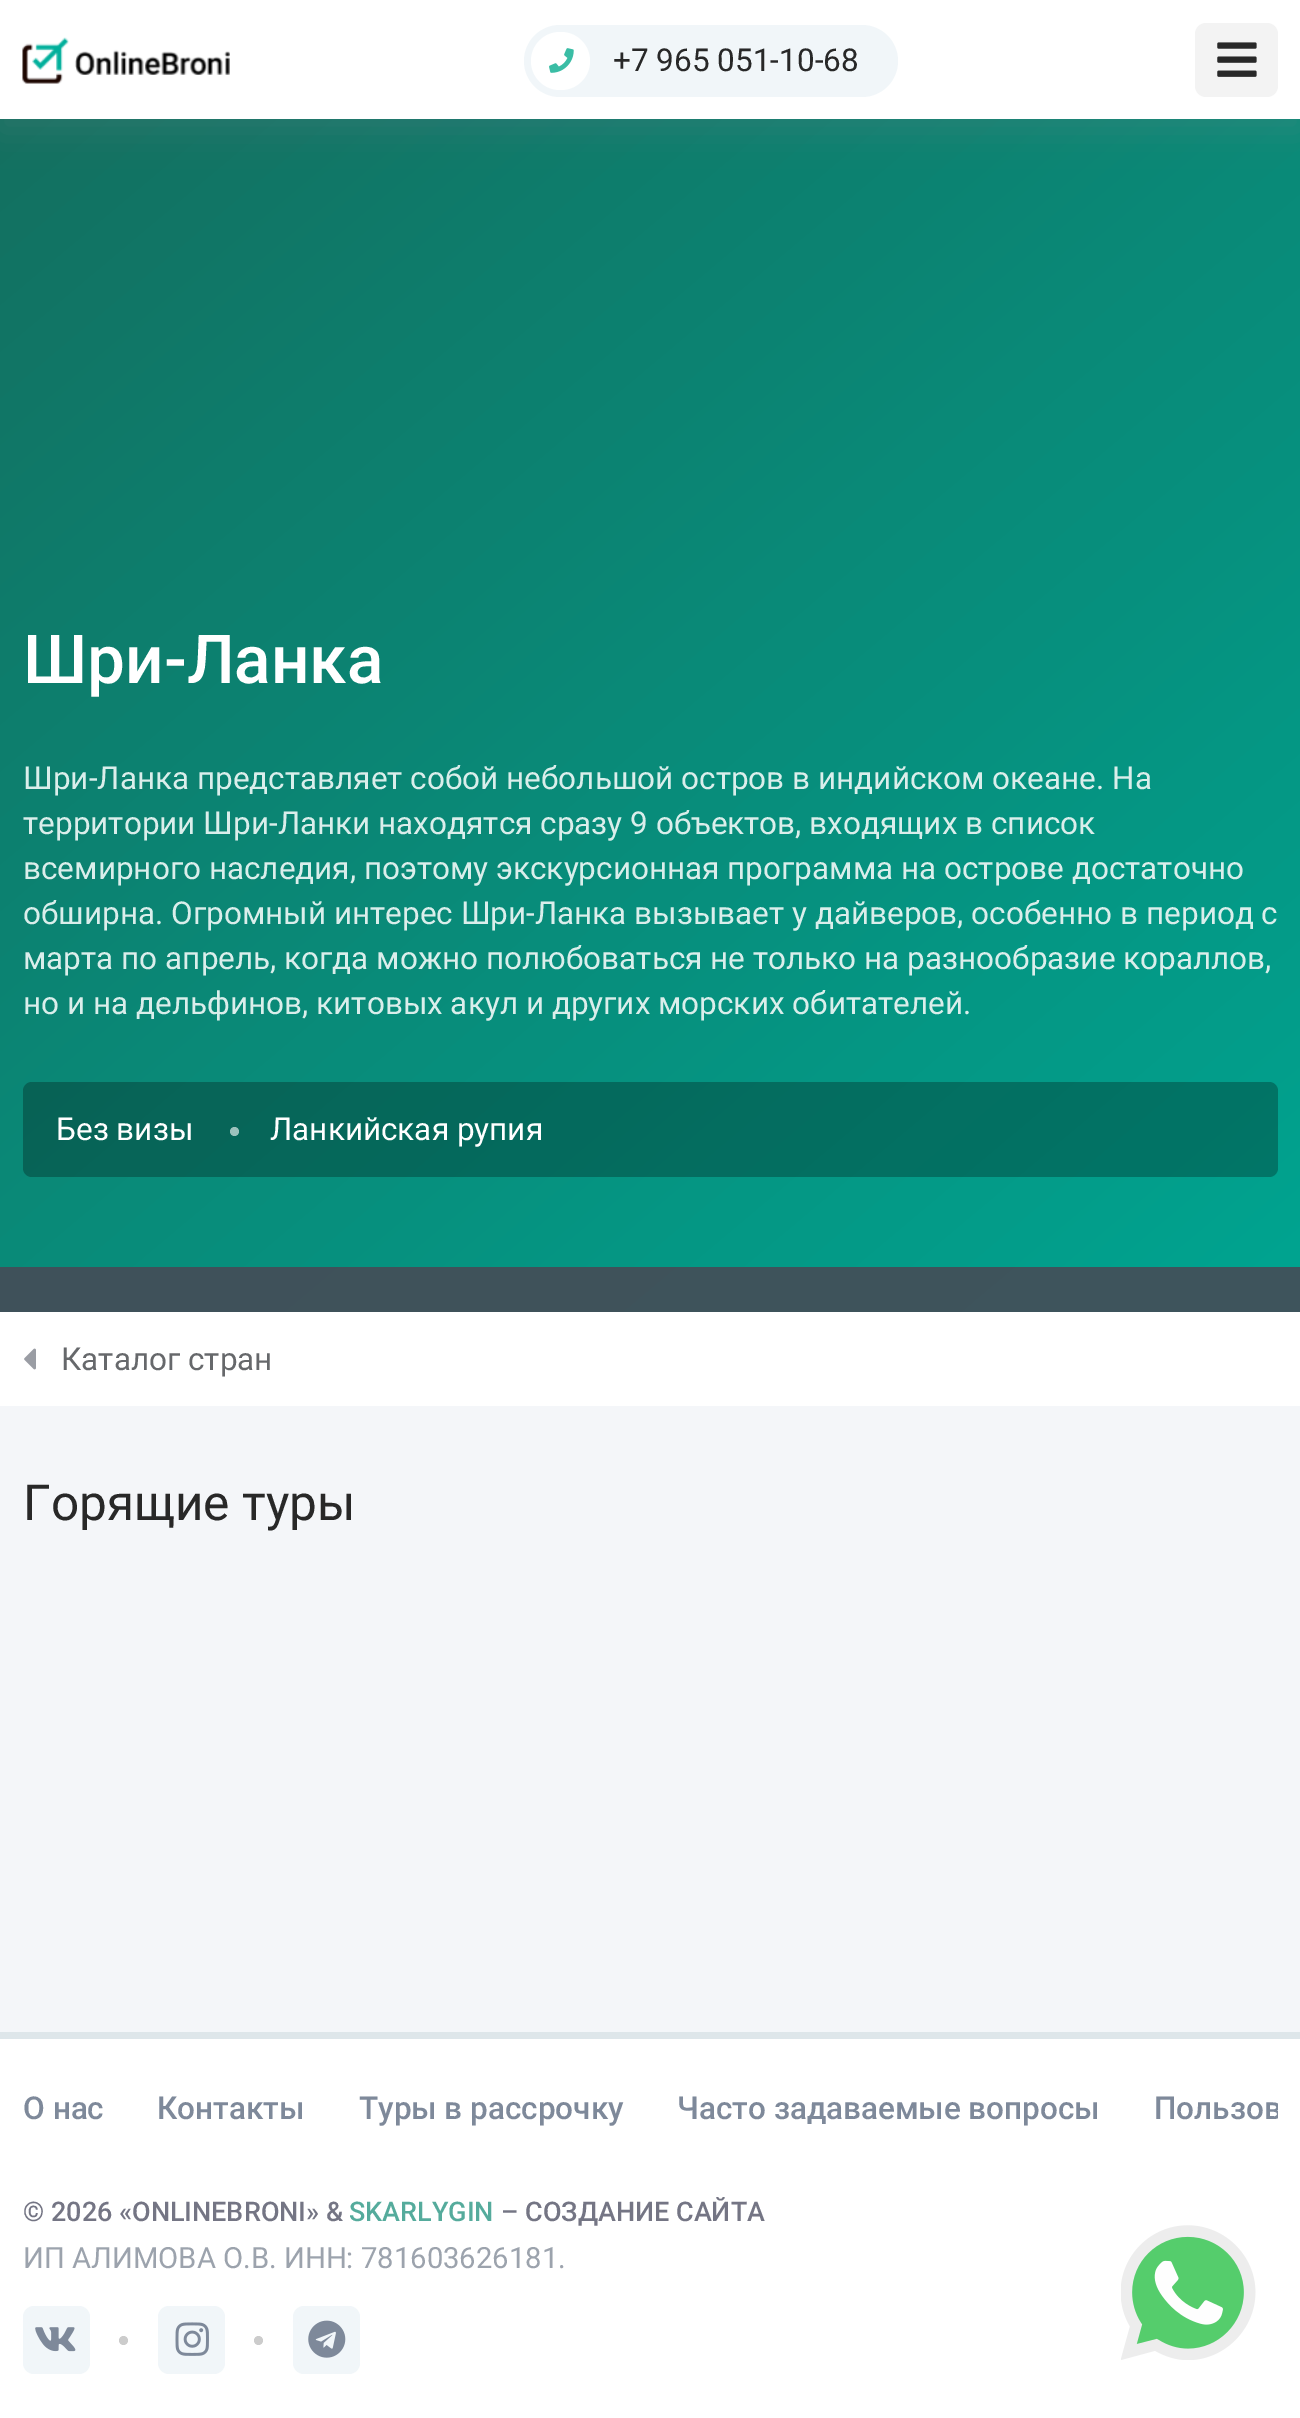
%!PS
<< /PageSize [1300 2418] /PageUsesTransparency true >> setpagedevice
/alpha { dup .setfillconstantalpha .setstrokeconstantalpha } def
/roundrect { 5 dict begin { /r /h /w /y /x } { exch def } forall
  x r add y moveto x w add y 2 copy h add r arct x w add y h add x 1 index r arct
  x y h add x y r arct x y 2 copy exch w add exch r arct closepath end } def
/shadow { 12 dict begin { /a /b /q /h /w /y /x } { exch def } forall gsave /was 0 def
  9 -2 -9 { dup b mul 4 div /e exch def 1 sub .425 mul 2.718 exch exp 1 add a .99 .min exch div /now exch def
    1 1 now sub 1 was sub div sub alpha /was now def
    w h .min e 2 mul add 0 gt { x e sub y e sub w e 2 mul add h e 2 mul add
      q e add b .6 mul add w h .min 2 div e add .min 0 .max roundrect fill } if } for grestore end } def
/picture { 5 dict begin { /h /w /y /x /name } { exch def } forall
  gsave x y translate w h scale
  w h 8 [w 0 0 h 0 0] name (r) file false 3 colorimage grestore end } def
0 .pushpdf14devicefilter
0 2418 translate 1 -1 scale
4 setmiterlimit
0.957 0.965 0.976 setrgbcolor
0 0 1300 2418 rectfill
gsave newpath 0 119 moveto 1300 119 lineto 1300 1267 lineto 0 1267 lineto closepath clip newpath
<< /ShadingType 2 /ColorSpace /DeviceRGB /Coords [88 45 1213 1386] /Extend [true true] /Function << /FunctionType 2 /Domain [0 1] /C0 [0.075 0.439 0.376] /C1 [0 0.647 0.569] /N 1 >> >> shfill grestore
0.502 0.514 0.565 setrgbcolor
0 11 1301 120 0 17 0.2 shadow
1 setgray
0 0 1300 119 rectfill
(img1.rgb) 22 37 208 47 picture
0.945 0.965 0.976 setrgbcolor
524 25 374 72 36 roundrect fill
1 setgray
531 32 59 58 29 roundrect fill
(img2.rgb) 549 48 25 25 picture
/Roboto-Regular [31.5 0 0 -31.5 0 0] selectfont
0.157 setgray
613 71 moveto (+7 965 051-10-68) show
0.953 setgray
1195 23 83 74 11 roundrect fill
(img3.rgb) 1217 42 40 35 picture
gsave newpath 0 1267 moveto 1300 1267 lineto 1300 1312 lineto 0 1312 lineto closepath clip newpath
<< /ShadingType 2 /ColorSpace /DeviceRGB /Coords [88 45 1213 1386] /Extend [true true] /Function << /FunctionType 2 /Domain [0 1] /C0 [0.255 0.302 0.337] /C1 [0.243 0.333 0.365] /N 1 >> >> shfill grestore
/Roboto-Medium [67.5 0 0 -67.5 0 0] selectfont
1 setgray
23 683 moveto (Шри-Ланка) show
/Roboto-Regular [31.5 0 0 -31.5 0 0] selectfont
0.855 0.933 0.922 setrgbcolor
23 789 moveto (Шри-Ланка представляет собой небольшой остров в индийском океане. На) show
23 834 moveto (территории Шри-Ланки находятся сразу 9 объектов, входящих в список) show
23 879 moveto (всемирного наследия, поэтому экскурсионная программа на острове достаточно) show
23 924 moveto (обширна. Огромный интерес Шри-Ланка вызывает у дайверов, особенно в период с) show
23 969 moveto (марта по апрель, когда можно полюбоваться не только на разнообразие кораллов,) show
23 1014 moveto (но и на дельфинов, китовых акул и других морских обитателей.) show
0.27 alpha
0 setgray
23 1082 1255 95 9 roundrect fill
1 alpha
1 setgray
56 1140 moveto (Без визы) show
0.612 0.761 0.741 setrgbcolor
newpath 234.5 1131.5 4.5 0 360 arc closepath fill
1 setgray
270 1140 moveto (Ланкийская рупия) show
0 1312 1300 94 rectfill
(img4.rgb) 24 1348 12 22 picture
0.4 0.408 0.42 setrgbcolor
61 1370 moveto (Каталог стран) show
/Roboto-Regular [49.5 0 0 -49.5 0 0] selectfont
0.157 setgray
23 1520 moveto (Горящие туры) show
1 setgray
0 2039 1300 379 rectfill
0.871 0.902 0.918 setrgbcolor
0 2032 1300 7 rectfill
/Roboto-Medium [31.5 0 0 -31.5 0 0] selectfont
0.494 0.537 0.604 setrgbcolor
23 2119 moveto (О нас) show
157 2119 moveto (Контакты) show
359 2119 moveto (Туры в рассрочку) show
677 2119 moveto (Часто задаваемые вопросы) show
gsave
23 2084 1255 81 rectclip
1154 2119 moveto (Пользов) show
grestore
/Roboto-Medium [27 0 0 -27 0 0] selectfont
0.455 0.459 0.518 setrgbcolor
23 2221 moveto (© 2026 «ONLINEBRONI» &) show
0.333 0.671 0.612 setrgbcolor
349 2221 moveto (SKARLYGIN) show
0.455 0.459 0.518 setrgbcolor
501 2221 moveto (– СОЗДАНИЕ САЙТА) show
/Roboto-Regular [29.25 0 0 -29.25 0 0] selectfont
0.612 0.639 0.678 setrgbcolor
23 2268 moveto (ИП АЛИМОВА О.В. ИНН: 781603626181.) show
0.945 0.965 0.976 setrgbcolor
23 2306 67 68 11 roundrect fill
(img5.rgb) 35 2327 41 25 picture
0.8 setgray
newpath 123.5 2340.5 4.5 0 360 arc closepath fill
0.945 0.965 0.976 setrgbcolor
158 2306 67 68 11 roundrect fill
(img6.rgb) 175 2322 34 34 picture
0.8 setgray
newpath 258.5 2340.5 4.5 0 360 arc closepath fill
0.945 0.965 0.976 setrgbcolor
293 2306 67 68 11 roundrect fill
(img7.rgb) 308 2320 38 38 picture
(img8.rgb) 1121 2225 135 135 picture
.poppdf14devicefilter showpage
